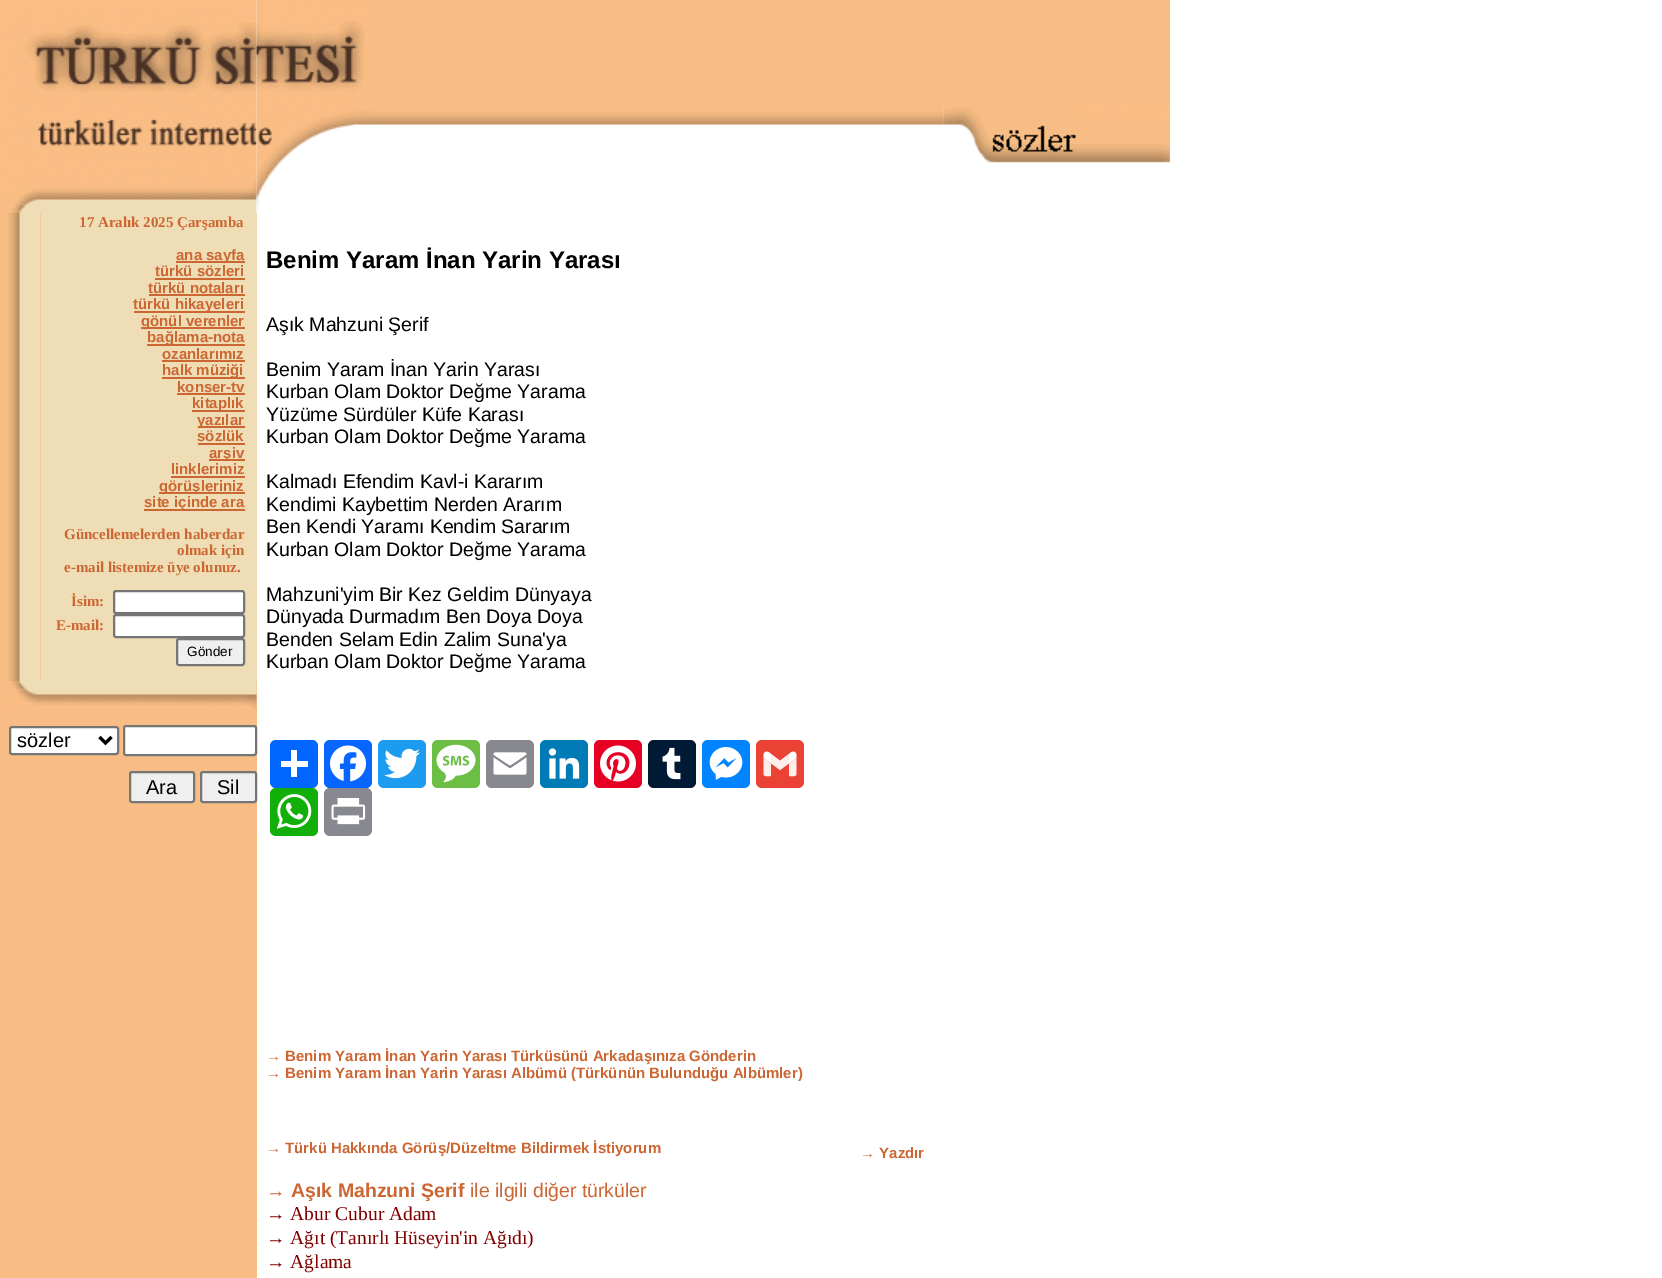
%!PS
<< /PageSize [1662 1278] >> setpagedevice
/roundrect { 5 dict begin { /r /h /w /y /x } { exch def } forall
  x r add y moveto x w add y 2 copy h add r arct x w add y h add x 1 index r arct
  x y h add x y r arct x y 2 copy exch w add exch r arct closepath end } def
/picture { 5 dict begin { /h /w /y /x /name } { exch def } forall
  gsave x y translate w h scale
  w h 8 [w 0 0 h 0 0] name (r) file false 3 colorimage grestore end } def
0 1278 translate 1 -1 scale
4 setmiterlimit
1 setgray
0 0 1662 1278 rectfill
(img1.rgb) 0 0 257 213 picture
(img2.rgb) 256 0 116 212 picture
0.969 0.741 0.518 setrgbcolor
372 0 798 102 rectfill
(img3.rgb) 372 102 572 23 picture
(img4.rgb) 943 102 1 23 picture
(img5.rgb) 943 102 227 61 picture
0 213 257 1065 rectfill
(img6.rgb) 8 213 33 468 picture
0.937 0.871 0.71 setrgbcolor
41 213 216 468 rectfill
/LiberationSerif-Bold [15 0 0 -15 0 0] selectfont
0.8 0.4 0.2 setrgbcolor
79 227 moveto (17 Aralık 2025 Çarşamba) show
176 261 69 2 rectfill
/LiberationSans-Bold [15 0 0 -15 0 0] selectfont
176 260 moveto (ana sayfa) show
155 276 moveto (türkü sözleri) show
155 278 90 2 rectfill
148 293 moveto (türkü notaları) show
149 294 96 2 rectfill
134 311 111 2 rectfill
133 309 moveto (türkü hikayeleri) show
141 327 104 2 rectfill
141 326 moveto (gönül verenler) show
147 344 98 2 rectfill
147 342 moveto (bağlama-nota) show
162 359 moveto (ozanlarımız) show
162 360 83 2 rectfill
162 377 83 2 rectfill
162 375 moveto (halk müziği) show
177 392 moveto (konser-tv) show
177 393 68 2 rectfill
192 410 53 2 rectfill
192 408 moveto (kitaplık) show
198 426 47 2 rectfill
197 425 moveto (yazılar) show
197 441 moveto (sözlük) show
198 443 47 2 rectfill
209 459 36 2 rectfill
209 458 moveto (arşiv) show
171 474 moveto (linklerimiz) show
171 476 74 2 rectfill
159 492 86 2 rectfill
159 491 moveto (görüşleriniz) show
144 509 101 2 rectfill
144 507 moveto (site içinde ara) show
/LiberationSerif-Bold [15 0 0 -15 0 0] selectfont
64 539 moveto (Güncellemelerden haberdar) show
177 555 moveto (olmak için) show
64 572 moveto (e-mail listemize üye olunuz.) show
71 606 moveto (İsim:) show
1 setgray
114 591 130 22 2 roundrect gsave fill grestore
0.463 setgray
2 setlinewidth
stroke
0.8 0.4 0.2 setrgbcolor
56 630 moveto (E-mail:) show
1 setgray
114 615 130 22 2 roundrect gsave fill grestore
0.463 setgray
stroke
0.937 setgray
177 639 67 26 2 roundrect gsave fill grestore
0.463 setgray
stroke
/LiberationSans-Regular [13.5 0 0 -13.5 0 0] selectfont
0 setgray
187 656 moveto (Gönder) show
(img7.rgb) 0 681 257 29 picture
1 setgray
10 727 108 27 2 roundrect gsave fill grestore
0.463 setgray
stroke
0 setgray
3 setlinewidth
newpath 99.5 737 moveto 105.5 743 lineto 111.5 737 lineto stroke
/LiberationSans-Regular [20 0 0 -20 0 0] selectfont
17 747 moveto (sözler) show
1 setgray
124 726 132 29 2 roundrect gsave fill grestore
0.463 setgray
2 setlinewidth
stroke
0.937 setgray
130 772 64 30 2 roundrect gsave fill grestore
0.463 setgray
stroke
0 setgray
146 794 moveto (Ara) show
0.937 setgray
201 772 55 30 2 roundrect gsave fill grestore
0.463 setgray
stroke
0 setgray
217 794 moveto (Sil) show
/LiberationSans-Bold [24 0 0 -24 0 0] selectfont
266 268 moveto (Benim Yaram İnan Yarin Yarası) show
/LiberationSans-Regular [19.5 0 0 -19.5 0 0] selectfont
266 331 moveto (Aşık Mahzuni Şerif) show
266 376 moveto (Benim Yaram İnan Yarin Yarası) show
266 398 moveto (Kurban Olam Doktor Değme Yarama) show
266 421 moveto (Yüzüme Sürdüler Küfe Karası) show
266 443 moveto (Kurban Olam Doktor Değme Yarama) show
266 488 moveto (Kalmadı Efendim Kavl-i Kararım) show
266 511 moveto (Kendimi Kaybettim Nerden Ararım) show
266 533 moveto (Ben Kendi Yaramı Kendim Sararım) show
266 556 moveto (Kurban Olam Doktor Değme Yarama) show
266 601 moveto (Mahzuni'yim Bir Kez Geldim Dünyaya) show
266 623 moveto (Dünyada Durmadım Ben Doya Doya) show
266 646 moveto (Benden Selam Edin Zalim Suna'ya) show
266 668 moveto (Kurban Olam Doktor Değme Yarama) show
0.004 0.4 1 setrgbcolor
270 740 48 48 6 roundrect fill
1 setgray
291 750 6 27 rectfill
281 761 27 6 rectfill
0.031 0.4 1 setrgbcolor
324 740 48 48 6 roundrect fill
(img8.rgb) 330 745 36 37 picture
0.114 0.608 0.941 setrgbcolor
378 740 48 48 6 roundrect fill
(img9.rgb) 384 748 36 31 picture
0.424 0.745 0.271 setrgbcolor
432 740 48 48 6 roundrect fill
(img10.rgb) 436 744 40 39 picture
0.533 0.537 0.565 setrgbcolor
486 740 48 48 6 roundrect fill
(img11.rgb) 493 752 34 23 picture
0 0.482 0.71 setrgbcolor
540 740 48 48 6 roundrect fill
(img12.rgb) 548 748 32 31 picture
0.902 0 0.137 setrgbcolor
594 740 48 48 6 roundrect fill
(img13.rgb) 600 745 36 37 picture
0 0.098 0.208 setrgbcolor
648 740 48 48 6 roundrect fill
(img14.rgb) 662 747 19 33 picture
0 0.518 1 setrgbcolor
702 740 48 48 6 roundrect fill
(img15.rgb) 709 747 34 33 picture
0.918 0.263 0.208 setrgbcolor
756 740 48 48 6 roundrect fill
(img16.rgb) 763 751 34 26 picture
0.071 0.686 0.039 setrgbcolor
270 788 48 48 6 roundrect fill
(img17.rgb) 276 794 36 35 picture
0.533 0.537 0.565 setrgbcolor
324 788 48 48 6 roundrect fill
(img18.rgb) 331 798 35 27 picture
/LiberationSans-Bold [15 0 0 -15 0 0] selectfont
0.8 0.4 0.2 setrgbcolor
266 1061 moveto (→ Benim Yaram İnan Yarin Yarası Türküsünü Arkadaşınıza Gönderin) show
266 1078 moveto (→ Benim Yaram İnan Yarin Yarası Albümü \(Türkünün Bulunduğu Albümler\)) show
266 1153 moveto (→ Türkü Hakkında Görüş/Düzeltme Bildirmek İstiyorum) show
860 1158 moveto (→ Yazdır) show
/LiberationSans-Bold [19.5 0 0 -19.5 0 0] selectfont
266 1197 moveto (→ Aşık Mahzuni Şerif) show
/LiberationSans-Regular [19.5 0 0 -19.5 0 0] selectfont
470 1197 moveto (ile ilgili diğer türküler) show
/LiberationSerif-Regular [19.5 0 0 -19.5 0 0] selectfont
0.502 0 0 setrgbcolor
266 1220 moveto (→ Abur Cubur Adam) show
266 1244 moveto (→ Ağıt \(Tanırlı Hüseyin'in Ağıdı\)) show
266 1268 moveto (→ Ağlama) show
showpage
